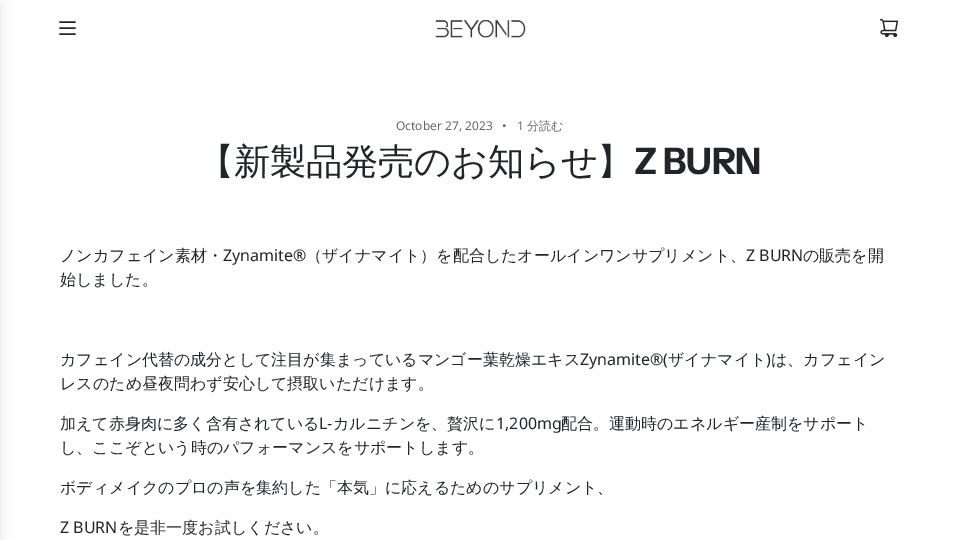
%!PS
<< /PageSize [959 540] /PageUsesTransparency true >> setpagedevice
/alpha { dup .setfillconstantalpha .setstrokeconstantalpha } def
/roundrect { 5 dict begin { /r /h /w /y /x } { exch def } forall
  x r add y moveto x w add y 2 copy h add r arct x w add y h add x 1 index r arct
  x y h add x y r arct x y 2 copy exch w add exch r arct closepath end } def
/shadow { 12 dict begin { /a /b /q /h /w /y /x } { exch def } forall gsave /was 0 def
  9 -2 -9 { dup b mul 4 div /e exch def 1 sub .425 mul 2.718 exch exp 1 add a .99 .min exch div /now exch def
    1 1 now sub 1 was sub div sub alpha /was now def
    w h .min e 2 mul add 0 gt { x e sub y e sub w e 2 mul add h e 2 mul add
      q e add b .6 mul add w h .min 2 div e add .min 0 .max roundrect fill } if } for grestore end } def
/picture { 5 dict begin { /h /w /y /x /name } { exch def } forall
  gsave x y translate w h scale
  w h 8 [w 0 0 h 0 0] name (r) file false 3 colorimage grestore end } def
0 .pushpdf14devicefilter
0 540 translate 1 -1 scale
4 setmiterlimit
1 setgray
0 0 959 540 rectfill
0 setgray
-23 5 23 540 0 7.5 0.1 shadow
0.141 setgray
1.5 setlinewidth
1 setlinecap
1 setlinejoin
newpath 60 22 moveto 75 22 lineto 60 28 moveto 75 28 lineto 60 34 moveto 75 34 lineto stroke
(img1.rgb) 435 19 91 19 picture
(img2.rgb) 879 18 20 20 picture
/NotoSans-Regular [12 0 0 -12 0 0] selectfont
0.392 0.4 0.412 setrgbcolor
396 130 moveto (October 27, 2023) show
502 130 moveto (•) show
517 130 moveto (1) show
/WenQuanYiZenHei-Medium [12 0 0 -12 0 0] selectfont
527 130 moveto (分読む) show
/WenQuanYiZenHei-Medium [36.4 0 0 -36.4 0 0] selectfont
0.129 0.145 0.161 setrgbcolor
198 174 moveto -0.4 0 (【新製品発売のお知らせ】) ashow
/InstrumentSans-Bold [36.4 0 0 -36.4 0 0] selectfont
634 174 moveto -0.4 0 (Z BURN) ashow
/WenQuanYiZenHei-Medium [16 0 0 -16 0 0] selectfont
60 261 moveto (ノンカフェイン素材・) show
/NotoSans-Regular [16 0 0 -16 0 0] selectfont
223 261 moveto (Zynamite®) show
/WenQuanYiZenHei-Medium [16 0 0 -16 0 0] selectfont
306 261 moveto (（ザイナマイト）を配合したオールインワンサプリメント、) show
/NotoSans-Regular [16 0 0 -16 0 0] selectfont
746 261 moveto (Z BURN) show
/WenQuanYiZenHei-Medium [16 0 0 -16 0 0] selectfont
803 261 moveto (の販売を開) show
60 285 moveto (始しました。) show
60 365 moveto (カフェイン代替の成分として注目が集まっているマンゴー葉乾燥エキス) show
/NotoSans-Regular [16 0 0 -16 0 0] selectfont
580 365 moveto (Zynamite®\() show
/WenQuanYiZenHei-Medium [16 0 0 -16 0 0] selectfont
668 365 moveto (ザイナマイト は、カフェイン) show
/NotoSans-Regular [16 0 0 -16 0 0] selectfont
766 365 moveto (\)) show
/WenQuanYiZenHei-Medium [16 0 0 -16 0 0] selectfont
60 389 moveto (レスのため昼夜問わず安心して摂取いただけます。) show
60 429 moveto (加えて赤身肉に多く含有されている) show
/NotoSans-Regular [16 0 0 -16 0 0] selectfont
319 429 moveto (L-) show
/WenQuanYiZenHei-Medium [16 0 0 -16 0 0] selectfont
333 429 moveto (カルニチンを、贅沢に) show
/NotoSans-Regular [16 0 0 -16 0 0] selectfont
496 429 moveto (1,200mg) show
/WenQuanYiZenHei-Medium [16 0 0 -16 0 0] selectfont
561 429 moveto (配合。運動時のエネルギー産制をサポート) show
60 453 moveto (し、ここぞという時のパフォーマンスをサポートします。) show
60 493 moveto (ボディメイクのプロの声を集約した「本気」に応えるためのサプリメント、) show
/NotoSans-Regular [16 0 0 -16 0 0] selectfont
60 533 moveto (Z BURN) show
/WenQuanYiZenHei-Medium [16 0 0 -16 0 0] selectfont
118 533 moveto (を是非一度お試しください。) show
.poppdf14devicefilter showpage
